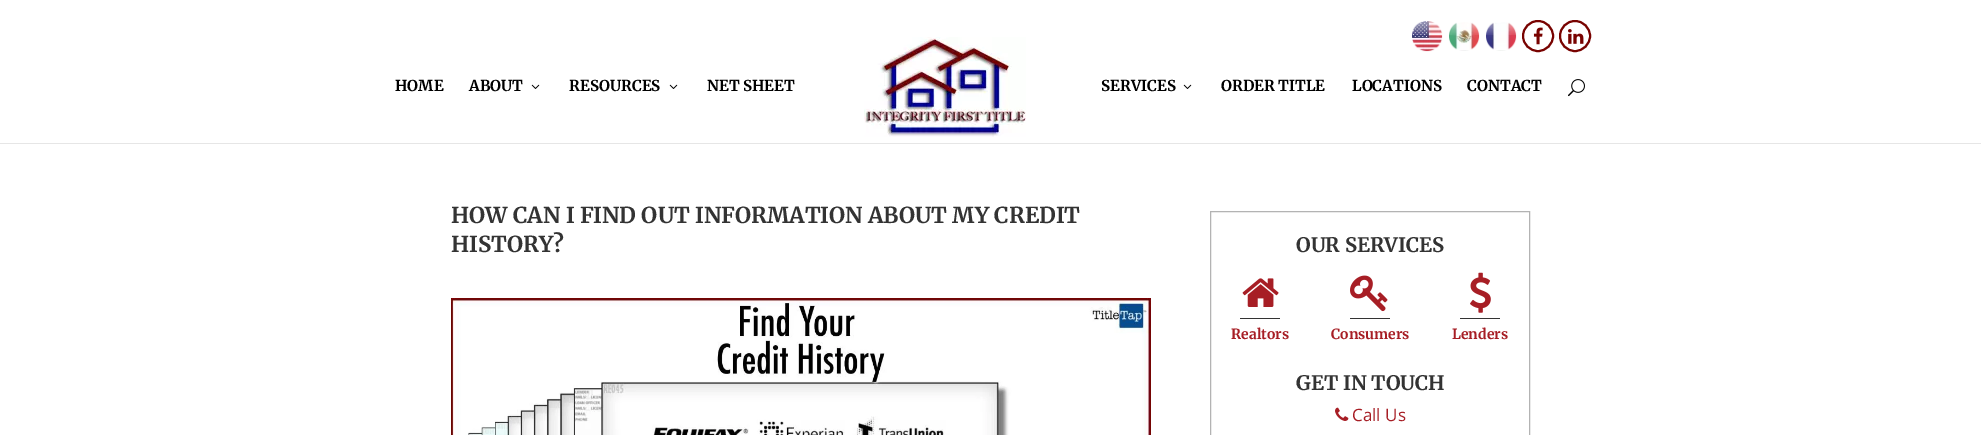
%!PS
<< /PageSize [1981 435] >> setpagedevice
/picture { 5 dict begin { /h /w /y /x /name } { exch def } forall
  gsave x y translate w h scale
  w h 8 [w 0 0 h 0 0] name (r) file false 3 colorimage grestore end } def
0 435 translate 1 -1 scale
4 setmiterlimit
1 setgray
0 0 1981 435 rectfill
(img1.rgb) 1412 21 31 31 picture
(img2.rgb) 1449 22 31 29 picture
(img3.rgb) 1486 22 31 29 picture
0.471 0.008 0 setrgbcolor
2 setlinewidth
newpath 1538 36 15 0 360 arc closepath stroke
(img4.rgb) 1533 27 10 18 picture
newpath 1575 36 15 0 360 arc closepath stroke
(img5.rgb) 1568 29 16 15 picture
0.902 setgray
0 143 1981 1 rectfill
/Merriweather-Light [15 0 0 -15 0 0] selectfont
0 setgray
395 91 moveto (HOME) show
469 91 moveto (ABOUT) show
(img6.rgb) 531 84 9 5 picture
569 91 moveto (RESOURCES) show
(img6.rgb) 669 84 9 5 picture
707 91 moveto (NET SHEET) show
(img7.rgb) 864 37 162 100 picture
1101 91 moveto (SERVICES) show
(img6.rgb) 1183 84 9 5 picture
1221 91 moveto (ORDER TITLE) show
1352 91 moveto (LOCATIONS) show
1467 91 moveto (CONTACT) show
(img8.rgb) 1568 79 17 18 picture
/Merriweather-Light [22 0 0 -22 0 0] selectfont
0.2 setgray
451 223 moveto (HOW CAN I FIND OUT INFORMATION ABOUT MY CREDIT) show
451 252 moveto (HISTORY?) show
(img9.rgb) 451 298 700 137 picture
0.702 setgray
1 setlinewidth
1210.5 211.5 319 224 rectstroke
/Merriweather-Light [20 0 0 -20 0 0] selectfont
0.2 setgray
1296 252 moveto (OUR SERVICES) show
1240 318 40 1 rectfill
(img10.rgb) 1242 278 37 29 picture
/Merriweather-Light [14 0 0 -14 0 0] selectfont
0.655 0.118 0.145 setrgbcolor
1231 339 moveto (Realtors) show
0.2 setgray
1350 318 40 1 rectfill
(img11.rgb) 1350 275 38 37 picture
0.655 0.118 0.145 setrgbcolor
1331 339 moveto (Consumers) show
0.2 setgray
1460 318 40 1 rectfill
(img12.rgb) 1470 272 21 41 picture
0.655 0.118 0.145 setrgbcolor
1452 339 moveto (Lenders) show
/Merriweather-Light [20 0 0 -20 0 0] selectfont
0.2 setgray
1296 390 moveto (GET IN TOUCH) show
(img13.rgb) 1335 407 14 14 picture
/OpenSans-Regular [17 0 0 -17 0 0] selectfont
0.655 0.118 0.145 setrgbcolor
1352 421 moveto (Call Us) show
showpage
